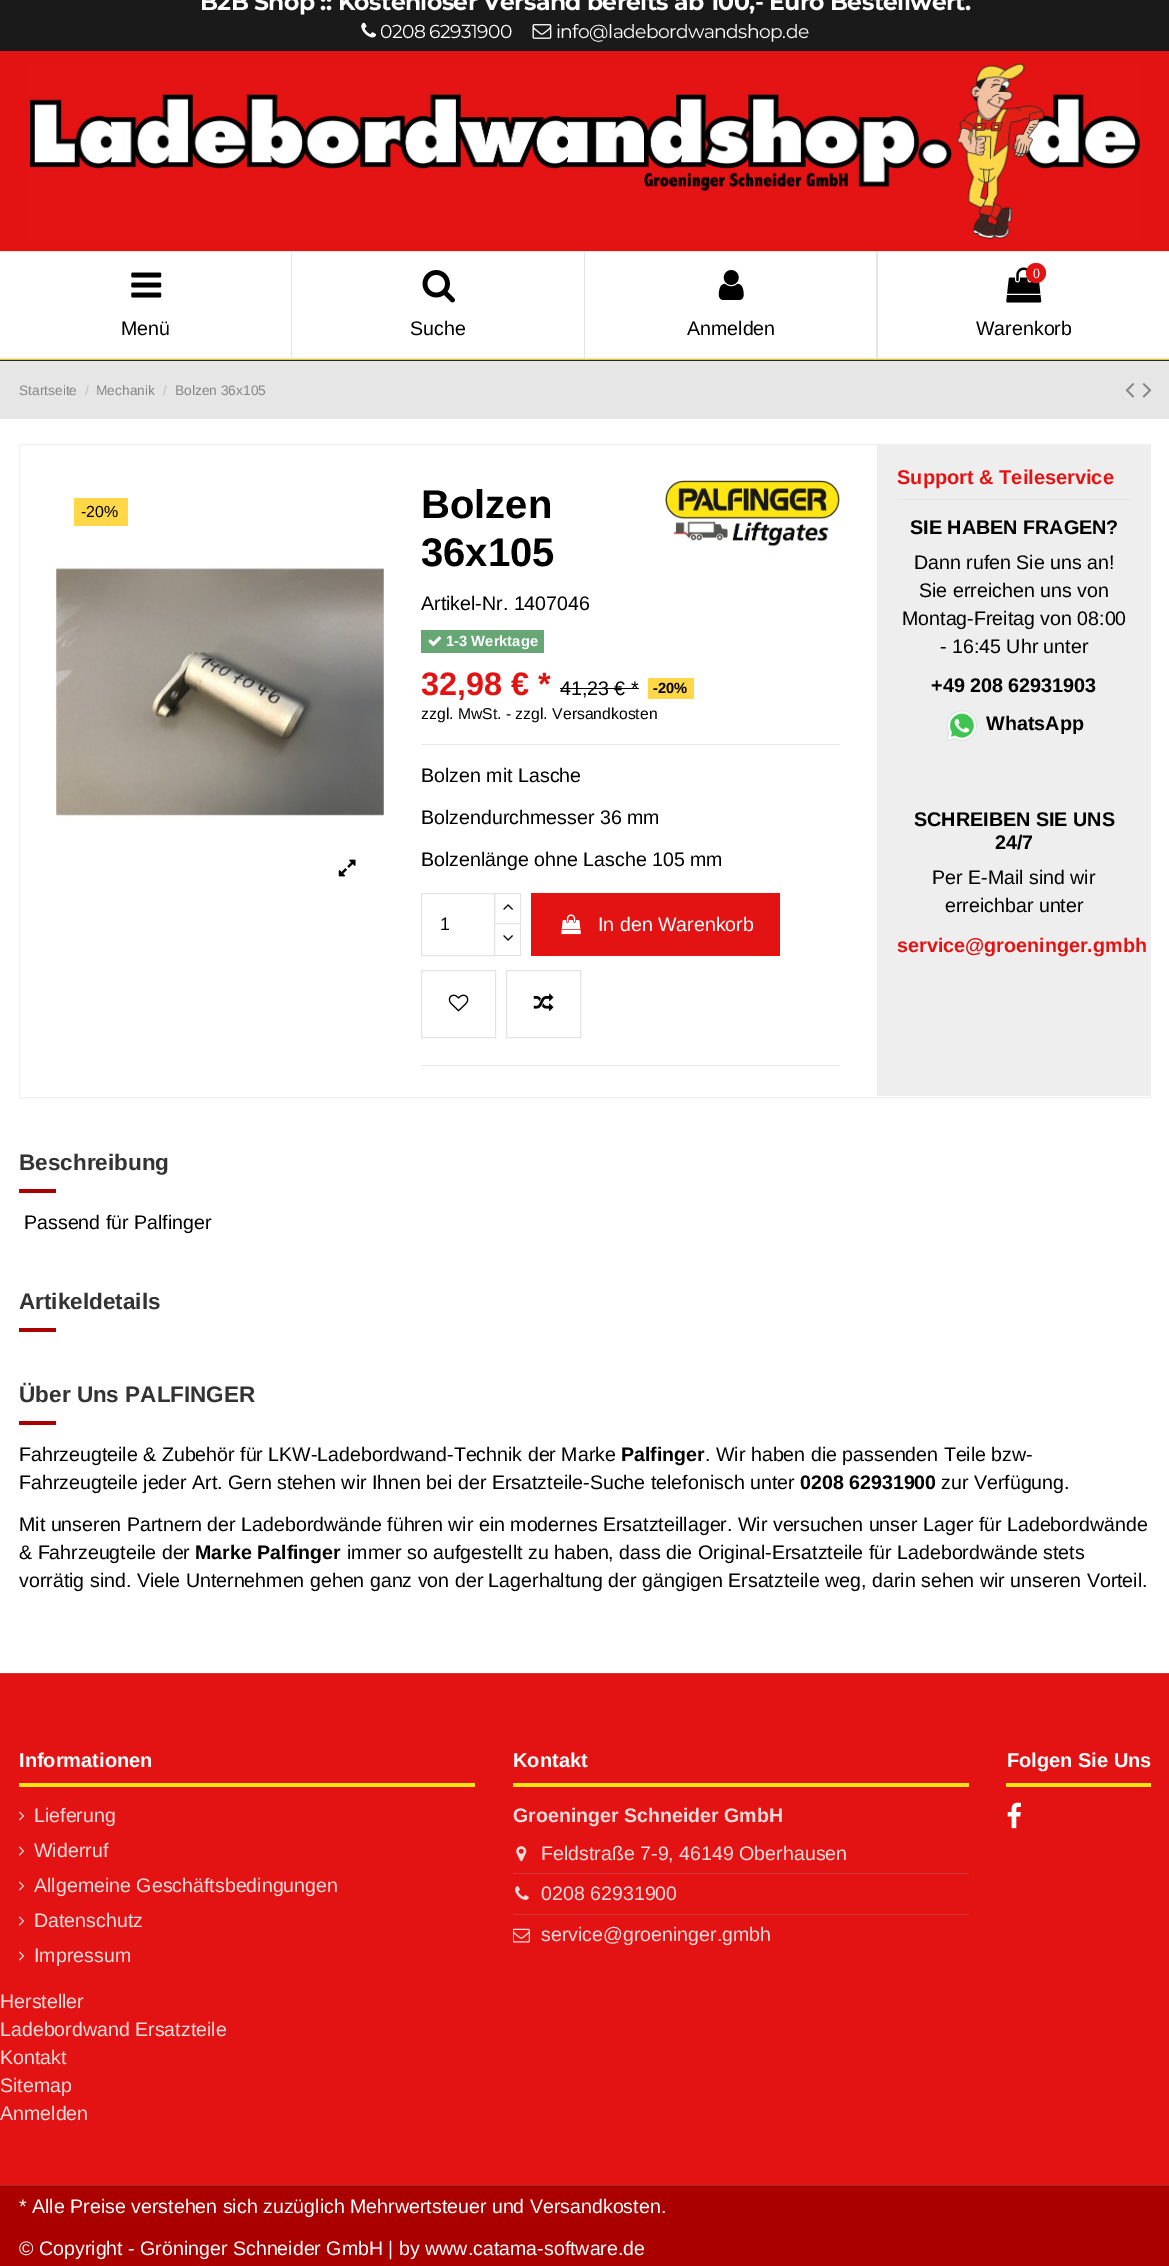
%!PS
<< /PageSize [1169 2266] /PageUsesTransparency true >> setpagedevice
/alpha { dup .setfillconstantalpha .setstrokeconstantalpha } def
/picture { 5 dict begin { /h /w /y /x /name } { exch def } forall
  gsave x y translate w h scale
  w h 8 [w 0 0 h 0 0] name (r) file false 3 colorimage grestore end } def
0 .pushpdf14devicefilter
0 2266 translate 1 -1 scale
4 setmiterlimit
1 setgray
0 0 1169 2266 rectfill
0.894 0.075 0.075 setrgbcolor
0 51 1169 200 rectfill
0.129 0.145 0.161 setrgbcolor
0 360 1169 1 rectfill
0.102 setgray
0 0 1169 51 rectfill
/Montserrat-Bold [23.5 0 0 -23.5 0 0] selectfont
1 setgray
200 10 moveto -0.62 0 (B2B Shop :: Kostenloser Versand bereits ab 100,- Euro Bestellwert.) ashow
(img1.rgb) 361 22 15 16 picture
/Montserrat-Regular [18.75 0 0 -18.75 0 0] selectfont
380 38 moveto -0.62 0 (0208 62931900) ashow
(img2.rgb) 532 24 20 15 picture
556 38 moveto -0.62 0 (info@ladebordwandshop.de) ashow
0.878 0.827 0 setrgbcolor
0 359 1169 1 rectfill
(img3.rgb) 30 63 1110 176 picture
0.898 setgray
newpath 0 251 moveto 292 251 lineto 291 252 lineto 0 252 lineto closepath fill
0.11 alpha
0.082 setgray
newpath 292 251 moveto 292 359 lineto 291 358 lineto 291 252 lineto closepath fill
newpath 292 359 moveto 0 359 lineto 0 358 lineto 291 358 lineto closepath fill
1 alpha
(img4.rgb) 131 272 31 26 picture
/LiberationSans-Regular [19.6 0 0 -19.6 0 0] selectfont
0 setgray
121 335 moveto (Menü) show
0.898 setgray
newpath 292 251 moveto 585 251 lineto 584 252 lineto 292 252 lineto closepath fill
0.11 alpha
0.082 setgray
newpath 585 251 moveto 585 359 lineto 584 358 lineto 584 252 lineto closepath fill
newpath 585 359 moveto 292 359 lineto 292 358 lineto 584 358 lineto closepath fill
1 alpha
(img5.rgb) 422 270 33 33 picture
0 setgray
410 335 moveto (Suche) show
0.898 setgray
newpath 585 251 moveto 878 251 lineto 876 252 lineto 585 252 lineto closepath fill
0.11 alpha
0.082 setgray
newpath 878 251 moveto 878 359 lineto 876 358 lineto 876 252 lineto closepath fill
newpath 878 359 moveto 585 359 lineto 585 358 lineto 876 358 lineto closepath fill
1 alpha
(img6.rgb) 718 270 26 30 picture
0 setgray
687 335 moveto (Anmelden) show
0.898 setgray
878 251 291 1 rectfill
878 358 291 1 rectfill
(img7.rgb) 1006 267 36 36 picture
0.894 0.075 0.075 setrgbcolor
newpath 1036 273 10 0 360 arc closepath fill
/LiberationSerif-Regular [14 0 0 -14 0 0] selectfont
1 setgray
1033 278 moveto (0) show
/LiberationSans-Regular [19.6 0 0 -19.6 0 0] selectfont
0 setgray
976 335 moveto (Warenkorb) show
0.902 setgray
0 361 1169 58 rectfill
/LiberationSans-Regular [13.75 0 0 -13.75 0 0] selectfont
0.522 setgray
19 395 moveto (Startseite) show
0.749 setgray
85 395 moveto (/) show
0.522 setgray
96 395 moveto (Mechanik) show
0.749 setgray
163 395 moveto (/) show
0.522 setgray
175 395 moveto (Bolzen 36x105) show
(img8.rgb) 1125 383 10 15 picture
(img9.rgb) 1142 383 10 15 picture
0.941 setgray
19.5 444.5 1131 653 rectstroke
1 0.843 0.278 setrgbcolor
74 498 54 28 rectfill
/LiberationSans-Regular [16 0 0 -16 0 0] selectfont
0 setgray
81 517 moveto (-20%) show
(img10.rgb) 56 567 328 251 picture
(img11.rgb) 338 859 18 18 picture
0.91 setgray
421 744 419 1 rectfill
/LiberationSans-Bold [40 0 0 -40 0 0] selectfont
0 setgray
421 518 moveto (Bolzen) show
421 566 moveto (36x105) show
(img12.rgb) 665 480 175 67 picture
/LiberationSans-Regular [19.6 0 0 -19.6 0 0] selectfont
421 610 moveto (Artikel-Nr. 1407046) show
0.404 0.651 0.459 setrgbcolor
421 630 123 23 rectfill
(img13.rgb) 428 636 14 11 picture
/LiberationSans-Bold [14.75 0 0 -14.75 0 0] selectfont
1 setgray
446 646 moveto (1-3 Werktage) show
/LiberationSans-Bold [32.5 0 0 -32.5 0 0] selectfont
0.894 0.075 0.075 setrgbcolor
421 695 moveto (32,98 € *) show
/LiberationSans-Regular [19.6 0 0 -19.6 0 0] selectfont
0 setgray
560 695 moveto (41,23 € *) show
560 688 79 1 rectfill
1 0.843 0.278 setrgbcolor
648 678 46 21 rectfill
/LiberationSans-Bold [14.75 0 0 -14.75 0 0] selectfont
0 setgray
653 693 moveto (-20%) show
/LiberationSans-Regular [15.75 0 0 -15.75 0 0] selectfont
421 719 moveto (zzgl. MwSt. - zzgl. Versandkosten) show
/LiberationSans-Regular [19.6 0 0 -19.6 0 0] selectfont
421 782 moveto (Bolzen mit Lasche) show
421 824 moveto (Bolzendurchmesser 36 mm) show
421 866 moveto (Bolzenlänge ohne Lasche 105 mm) show
0.89 setgray
421.5 893.5 73 62 rectstroke
/LiberationSans-Regular [18 0 0 -18 0 0] selectfont
0 setgray
440 930 moveto (1) show
0.89 setgray
494.5 893.5 26 30 rectstroke
(img14.rgb) 503 904 10 6 picture
1 setgray
494 924 1 31 rectfill
0.89 setgray
newpath 521 924 moveto 521 956 lineto 520 955 lineto 520 925 lineto closepath fill
494 955 27 1 rectfill
newpath 494 956 moveto 494 924 lineto 495 925 lineto 495 955 lineto closepath fill
(img15.rgb) 503 935 10 6 picture
0.894 0.075 0.075 setrgbcolor
531 893 249 63 rectfill
(img16.rgb) 561 914 20 21 picture
/LiberationSans-Regular [19.6 0 0 -19.6 0 0] selectfont
1 setgray
598 931 moveto (In den Warenkorb) show
0.89 setgray
421.5 970.5 74 67 rectstroke
(img17.rgb) 448 994 21 18 picture
506.5 970.5 74 67 rectstroke
(img18.rgb) 533 993 21 18 picture
0.91 setgray
421 1065 419 1 rectfill
0.933 setgray
877 445 273 651 rectfill
0.89 setgray
898 499 232 1 rectfill
/LiberationSans-Bold [20 0 0 -20 0 0] selectfont
0.894 0.075 0.075 setrgbcolor
897 484 moveto (Support & Teileservice) show
/LiberationSans-Bold [19.75 0 0 -19.75 0 0] selectfont
0 setgray
910 534 moveto (SIE HABEN FRAGEN?) show
/LiberationSans-Regular [19.6 0 0 -19.6 0 0] selectfont
914 569 moveto (Dann rufen Sie uns an!) show
919 597 moveto (Sie erreichen uns von) show
902 625 moveto (Montag-Freitag von 08:00) show
940 653 moveto (- 16:45 Uhr unter) show
/LiberationSans-Bold [19.75 0 0 -19.75 0 0] selectfont
931 692 moveto (+49 208 62931903) show
(img19.rgb) 946 710 31 31 picture
986 730 moveto (WhatsApp) show
914 826 moveto (SCHREIBEN SIE UNS) show
995 849 moveto (24/7) show
/LiberationSans-Regular [19.6 0 0 -19.6 0 0] selectfont
932 884 moveto (Per E-Mail sind wir) show
945 912 moveto (erreichbar unter) show
/LiberationSans-Bold [19.75 0 0 -19.75 0 0] selectfont
0.894 0.075 0.075 setrgbcolor
897 952 moveto (service@groeninger.gmbh) show
/LiberationSans-Bold [22.5 0 0 -22.5 0 0] selectfont
0.2 setgray
19 1170 moveto (Beschreibung) show
0.667 0 0 setrgbcolor
19 1189 37 4 rectfill
/LiberationSans-Regular [19.6 0 0 -19.6 0 0] selectfont
0 setgray
24 1229 moveto (Passend für Palfinger) show
/LiberationSans-Bold [22.5 0 0 -22.5 0 0] selectfont
0.2 setgray
19 1309 moveto (Artikeldetails) show
0.667 0 0 setrgbcolor
19 1328 37 4 rectfill
0.2 setgray
19 1402 moveto (Über Uns PALFINGER) show
0.667 0 0 setrgbcolor
19 1421 37 4 rectfill
/LiberationSans-Regular [19.6 0 0 -19.6 0 0] selectfont
0 setgray
19 1461 moveto (Fahrzeugteile & Zubehör für LKW-Ladebordwand-Technik der Marke) show
/LiberationSans-Bold [19.6 0 0 -19.6 0 0] selectfont
621 1461 moveto (Palfinger) show
/LiberationSans-Regular [19.6 0 0 -19.6 0 0] selectfont
705 1461 moveto (. Wir haben die passenden Teile bzw-) show
19 1489 moveto (Fahrzeugteile jeder Art. Gern stehen wir Ihnen bei der Ersatzteile-Suche telefonisch unter) show
/LiberationSans-Bold [19.6 0 0 -19.6 0 0] selectfont
800 1489 moveto (0208 62931900) show
/LiberationSans-Regular [19.6 0 0 -19.6 0 0] selectfont
941 1489 moveto (zur Verfügung.) show
19 1531 moveto (Mit unseren Partnern der Ladebordwände führen wir ein modernes Ersatzteillager. Wir versuchen unser Lager für Ladebordwände) show
19 1559 moveto (& Fahrzeugteile der) show
/LiberationSans-Bold [19.6 0 0 -19.6 0 0] selectfont
195 1559 moveto (Marke Palfinger) show
/LiberationSans-Regular [19.6 0 0 -19.6 0 0] selectfont
347 1559 moveto (immer so aufgestellt zu haben, dass die Original-Ersatzteile für Ladebordwände stets) show
19 1587 moveto (vorrätig sind. Viele Unternehmen gehen ganz von der Lagerhaltung der gängigen Ersatzteile weg, darin sehen wir unseren Vorteil.) show
0.894 0.075 0.075 setrgbcolor
0 1674 1169 511 rectfill
0.827 0.216 0.216 setrgbcolor
0 1673 1169 1 rectfill
0.961 0.906 0.059 setrgbcolor
19 1783 456 4 rectfill
/LiberationSans-Bold [20 0 0 -20 0 0] selectfont
1 setgray
19 1767 moveto (Informationen) show
(img20.rgb) 18 1811 7 10 picture
/LiberationSans-Regular [19.6 0 0 -19.6 0 0] selectfont
0.984 0.863 0.863 setrgbcolor
34 1822 moveto (Lieferung) show
(img20.rgb) 18 1846 7 10 picture
34 1857 moveto (Widerruf) show
(img20.rgb) 18 1881 7 10 picture
34 1892 moveto (Allgemeine Geschäftsbedingungen) show
(img20.rgb) 18 1916 7 10 picture
34 1927 moveto (Datenschutz) show
(img20.rgb) 18 1951 7 10 picture
34 1962 moveto (Impressum) show
0.961 0.906 0.059 setrgbcolor
513 1783 456 4 rectfill
/LiberationSans-Bold [20 0 0 -20 0 0] selectfont
1 setgray
513 1767 moveto (Kontakt) show
/LiberationSans-Bold [19.6 0 0 -19.6 0 0] selectfont
0.984 0.863 0.863 setrgbcolor
513 1822 moveto (Groeninger Schneider GmbH) show
(img21.rgb) 516 1846 11 16 picture
/LiberationSans-Regular [19.6 0 0 -19.6 0 0] selectfont
541 1860 moveto (Feldstraße 7-9, 46149 Oberhausen) show
0.827 0.216 0.216 setrgbcolor
513 1873 456 1 rectfill
(img22.rgb) 515 1886 14 14 picture
0.984 0.863 0.863 setrgbcolor
541 1900 moveto (0208 62931900) show
0.827 0.216 0.216 setrgbcolor
513 1914 456 1 rectfill
(img23.rgb) 513 1928 17 15 picture
0.984 0.863 0.863 setrgbcolor
541 1941 moveto (service@groeninger.gmbh) show
0.961 0.906 0.059 setrgbcolor
1006 1783 145 4 rectfill
/LiberationSans-Bold [20 0 0 -20 0 0] selectfont
1 setgray
1007 1767 moveto (Folgen Sie Uns) show
(img24.rgb) 1007 1802 14 27 picture
/LiberationSans-Regular [19.6 0 0 -19.6 0 0] selectfont
0.984 0.863 0.863 setrgbcolor
0 2008 moveto (Hersteller) show
0 2036 moveto (Ladebordwand Ersatzteile) show
0 2064 moveto (Kontakt) show
0 2092 moveto (Sitemap) show
0 2120 moveto (Anmelden) show
0.667 0 0 setrgbcolor
0 2186 1169 80 rectfill
0.659 0.157 0.157 setrgbcolor
0 2185 1169 1 rectfill
1 setgray
19 2213 moveto (* Alle Preise verstehen sich zuzüglich Mehrwertsteuer und Versandkosten.) show
19 2255 moveto (© Copyright - Gröninger Schneider GmbH | by www.catama-software.de) show
.poppdf14devicefilter showpage
